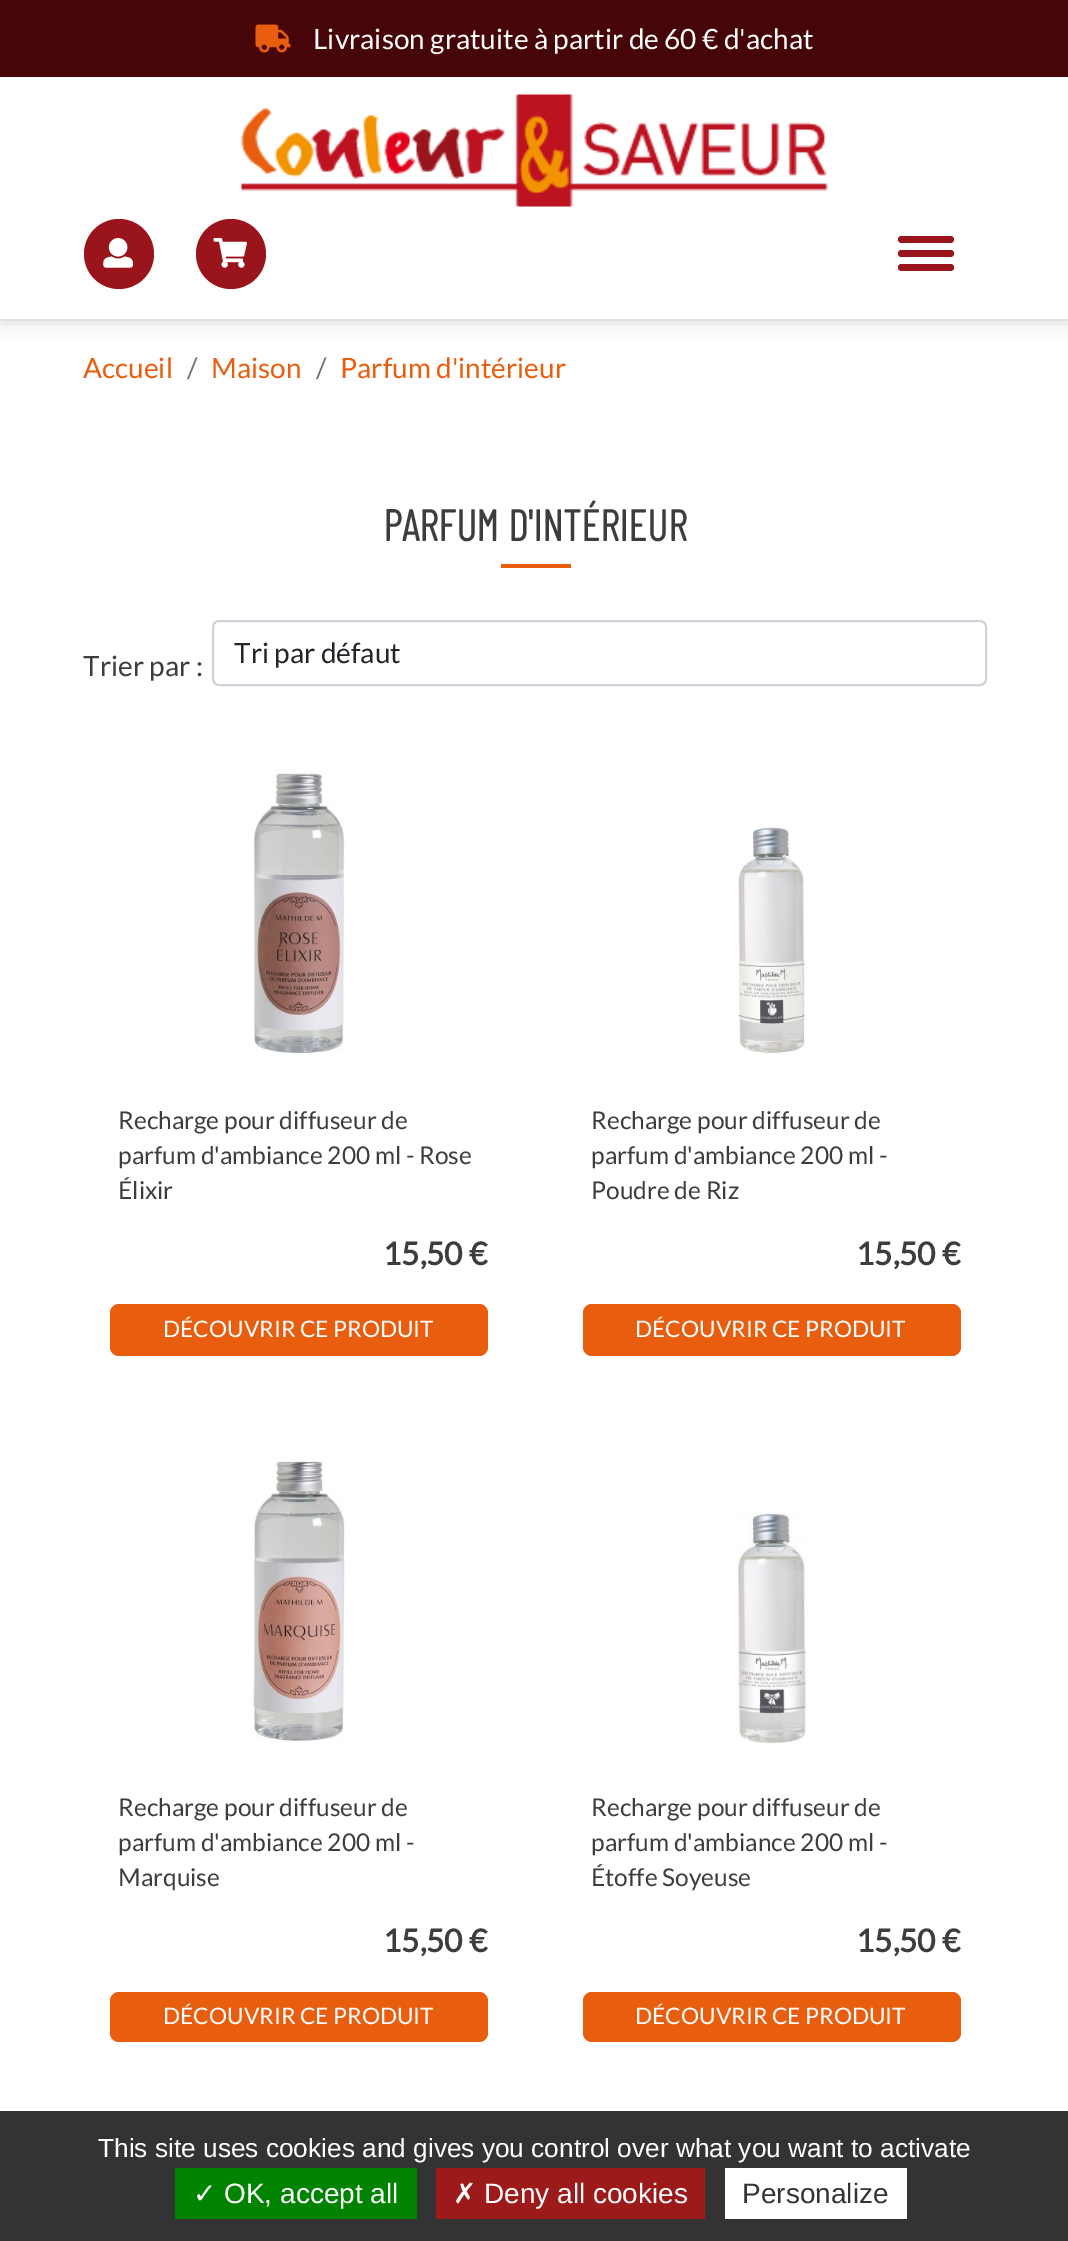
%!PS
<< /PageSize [1068 2241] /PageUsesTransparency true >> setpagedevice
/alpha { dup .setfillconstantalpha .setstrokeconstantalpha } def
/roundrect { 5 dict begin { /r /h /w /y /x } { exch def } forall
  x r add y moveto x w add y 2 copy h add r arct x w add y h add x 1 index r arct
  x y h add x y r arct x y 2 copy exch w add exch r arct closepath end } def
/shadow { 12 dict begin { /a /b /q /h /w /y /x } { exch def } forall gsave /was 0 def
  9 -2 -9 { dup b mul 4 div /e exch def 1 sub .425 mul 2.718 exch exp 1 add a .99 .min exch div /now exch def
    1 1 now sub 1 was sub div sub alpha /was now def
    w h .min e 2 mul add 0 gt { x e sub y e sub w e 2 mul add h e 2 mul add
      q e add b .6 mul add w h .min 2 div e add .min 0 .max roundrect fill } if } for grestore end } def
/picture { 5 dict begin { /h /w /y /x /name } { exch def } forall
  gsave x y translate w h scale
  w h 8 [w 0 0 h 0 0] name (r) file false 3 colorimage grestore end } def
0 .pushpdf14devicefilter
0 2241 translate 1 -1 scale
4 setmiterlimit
1 setgray
0 0 1068 2241 rectfill
0.753 setgray
0 77 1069 242 0 9 1 shadow
0.275 0.02 0.031 setrgbcolor
0 0 1068 77 rectfill
(img1.rgb) 255 24 36 29 picture
/Lato-Regular [28 0 0 -28 0 0] selectfont
1 setgray
313 49 moveto (Livraison gratuite à partir de 60 € d'achat) show
0 77 1068 242 rectfill
(img2.rgb) 241 94 587 113 picture
0.604 0.078 0.106 setrgbcolor
newpath 119 254 35 0 360 arc closepath fill
(img3.rgb) 103 238 30 30 picture
newpath 231 254 35 0 360 arc closepath fill
(img4.rgb) 213 238 34 30 picture
898 236 56 7 3.5 roundrect fill
898 250 56 7 3.5 roundrect fill
898 264 56 7 3.5 roundrect fill
0.914 0.365 0.059 setrgbcolor
83 378 moveto (Accueil) show
0.424 0.459 0.49 setrgbcolor
187 378 moveto (/) show
0.914 0.365 0.059 setrgbcolor
211 378 moveto (Maison) show
0.424 0.459 0.49 setrgbcolor
316 378 moveto (/) show
0.914 0.365 0.059 setrgbcolor
340 378 moveto (Parfum d'intérieur) show
/BarlowCondensed-Bold [43.75 0 0 -43.75 0 0] selectfont
0.239 setgray
383 541 moveto (PARFUM D'INTÉRIEUR) show
0.914 0.365 0.059 setrgbcolor
501 564 70 4 rectfill
/Lato-Regular [28 0 0 -28 0 0] selectfont
0.239 setgray
83 676 moveto (Trier par :) show
0.808 0.831 0.855 setrgbcolor
2 setlinewidth
213 621 773 64 6 roundrect stroke
0.129 0.145 0.161 setrgbcolor
234 663 moveto (Tri par défaut) show
(img5.rgb) 252 770 93 285 picture
/Lato-Regular [24.5 0 0 -24.5 0 0] selectfont
0.239 setgray
118 1129 moveto (Recharge pour diffuseur de) show
118 1164 moveto (parfum d'ambiance 200 ml - Rose) show
118 1199 moveto (Élixir) show
/Lato-Bold [31.5 0 0 -31.5 0 0] selectfont
383 1265 moveto (15,50 €) show
0.914 0.365 0.059 setrgbcolor
110 1304 378 52 9 roundrect fill
/Lato-Regular [22.75 0 0 -22.75 0 0] selectfont
1 setgray
163 1337 moveto (DÉCOUVRIR CE PRODUIT) show
(img6.rgb) 734 825 76 229 picture
/Lato-Regular [24.5 0 0 -24.5 0 0] selectfont
0.239 setgray
591 1129 moveto (Recharge pour diffuseur de) show
591 1164 moveto (parfum d'ambiance 200 ml -) show
591 1199 moveto (Poudre de Riz) show
/Lato-Bold [31.5 0 0 -31.5 0 0] selectfont
856 1265 moveto (15,50 €) show
0.914 0.365 0.059 setrgbcolor
583 1304 378 52 9 roundrect fill
/Lato-Regular [22.75 0 0 -22.75 0 0] selectfont
1 setgray
635 1337 moveto (DÉCOUVRIR CE PRODUIT) show
(img7.rgb) 251 1457 94 285 picture
/Lato-Regular [24.5 0 0 -24.5 0 0] selectfont
0.239 setgray
118 1816 moveto (Recharge pour diffuseur de) show
118 1851 moveto (parfum d'ambiance 200 ml -) show
118 1886 moveto (Marquise) show
/Lato-Bold [31.5 0 0 -31.5 0 0] selectfont
383 1952 moveto (15,50 €) show
0.914 0.365 0.059 setrgbcolor
110 1992 378 50 9 roundrect fill
/Lato-Regular [22.75 0 0 -22.75 0 0] selectfont
1 setgray
163 2024 moveto (DÉCOUVRIR CE PRODUIT) show
(img8.rgb) 735 1509 75 236 picture
/Lato-Regular [24.5 0 0 -24.5 0 0] selectfont
0.239 setgray
591 1816 moveto (Recharge pour diffuseur de) show
591 1851 moveto (parfum d'ambiance 200 ml -) show
591 1886 moveto (Étoffe Soyeuse) show
/Lato-Bold [31.5 0 0 -31.5 0 0] selectfont
856 1952 moveto (15,50 €) show
0.914 0.365 0.059 setrgbcolor
583 1992 378 50 9 roundrect fill
/Lato-Regular [22.75 0 0 -22.75 0 0] selectfont
1 setgray
635 2024 moveto (DÉCOUVRIR CE PRODUIT) show
0.2 setgray
0 2111 1068 130 rectfill
/LiberationSans-Regular [26.25 0 0 -26.25 0 0] selectfont
1 setgray
98 2157 moveto (This site uses cookies and gives you control over what you want to activate) show
0 0.514 0 setrgbcolor
175 2168 242 51 rectfill
/DejaVuSans-Regular [28 0 0 -28 0 0] selectfont
1 setgray
193 2203 moveto (✓) show
/LiberationSans-Regular [28 0 0 -28 0 0] selectfont
224 2203 moveto (OK, accept all) show
0.612 0.102 0.102 setrgbcolor
436 2168 269 51 rectfill
/DejaVuSans-Regular [28 0 0 -28 0 0] selectfont
1 setgray
453 2203 moveto (✗) show
/LiberationSans-Regular [28 0 0 -28 0 0] selectfont
484 2203 moveto (Deny all cookies) show
725 2168 182 51 rectfill
0.2 setgray
742 2203 moveto (Personalize) show
.poppdf14devicefilter showpage
